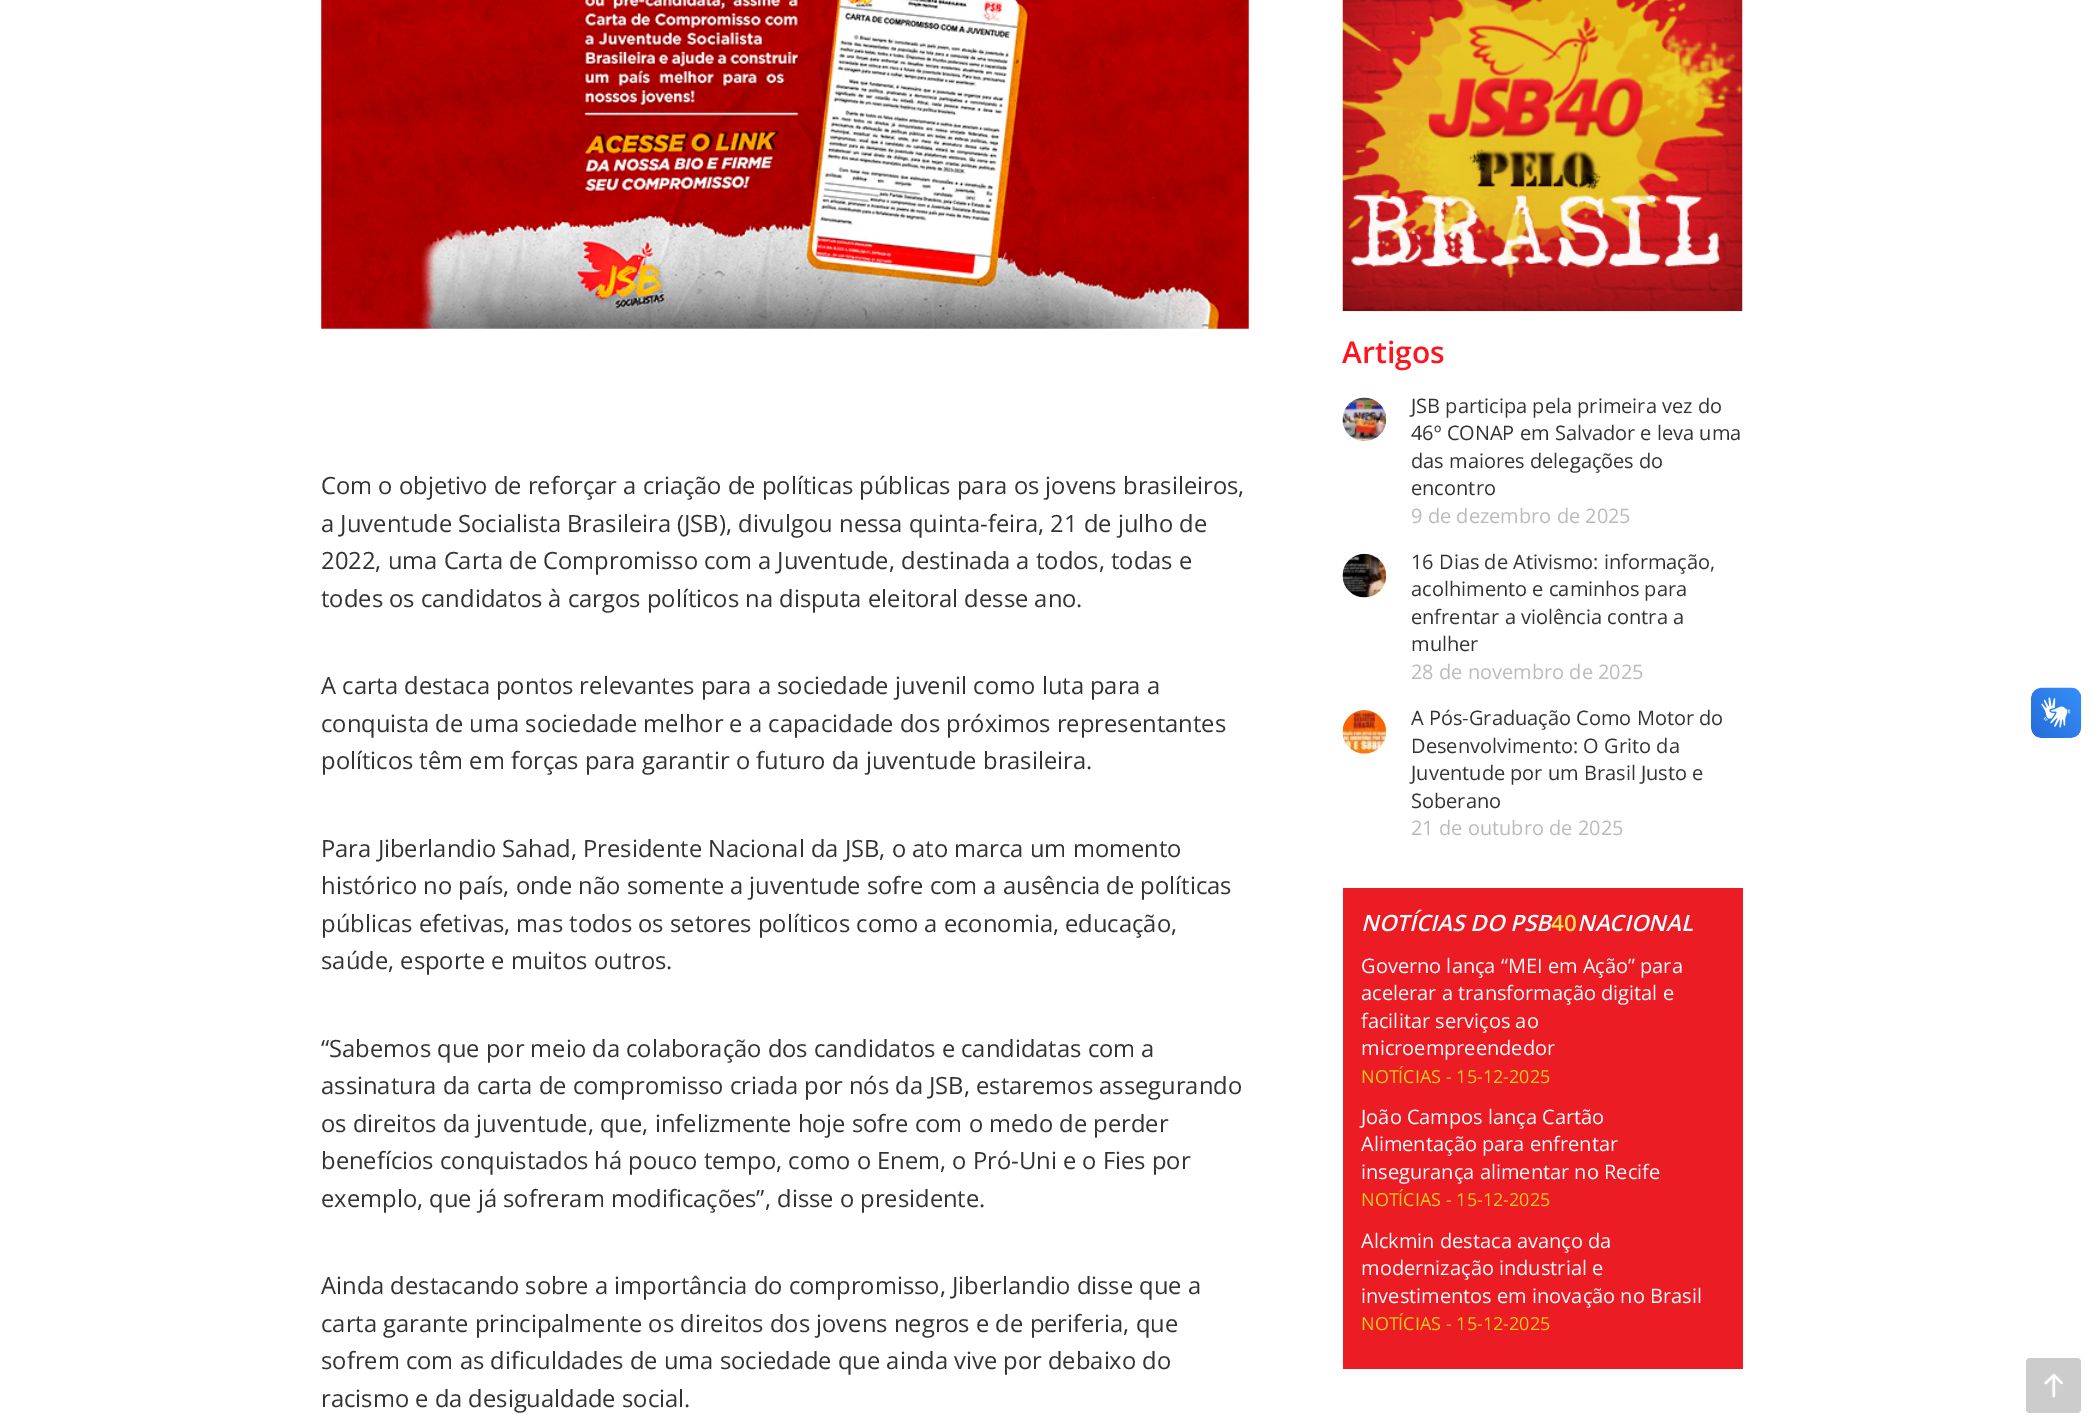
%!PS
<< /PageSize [2093 1425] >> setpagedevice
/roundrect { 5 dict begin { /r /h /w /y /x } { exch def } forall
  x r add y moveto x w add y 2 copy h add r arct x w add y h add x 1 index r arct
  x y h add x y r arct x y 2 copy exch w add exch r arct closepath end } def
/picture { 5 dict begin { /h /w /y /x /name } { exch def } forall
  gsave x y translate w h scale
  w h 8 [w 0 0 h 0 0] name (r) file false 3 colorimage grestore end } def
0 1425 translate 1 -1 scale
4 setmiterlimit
1 setgray
0 0 2093 1425 rectfill
(img1.rgb) 321 0 928 329 picture
/OpenSans-Regular [23.75 0 0 -23.75 0 0] selectfont
0.2 setgray
321 494 moveto (Com o objetivo de reforçar a criação de políticas públicas para os jovens brasileiros,) show
321 532 moveto (a Juventude Socialista Brasileira \(JSB\), divulgou nessa quinta-feira, 21 de julho de) show
321 569 moveto (2022, uma Carta de Compromisso com a Juventude, destinada a todos, todas e) show
321 607 moveto (todes os candidatos à cargos políticos na disputa eleitoral desse ano.) show
321 694 moveto (A carta destaca pontos relevantes para a sociedade juvenil como luta para a) show
321 732 moveto (conquista de uma sociedade melhor e a capacidade dos próximos representantes) show
321 769 moveto (políticos têm em forças para garantir o futuro da juventude brasileira.) show
321 857 moveto (Para Jiberlandio Sahad, Presidente Nacional da JSB, o ato marca um momento) show
321 894 moveto (histórico no país, onde não somente a juventude sofre com a ausência de políticas) show
321 932 moveto (públicas efetivas, mas todos os setores políticos como a economia, educação,) show
321 969 moveto (saúde, esporte e muitos outros.) show
321 1057 moveto (“Sabemos que por meio da colaboração dos candidatos e candidatas com a) show
321 1094 moveto (assinatura da carta de compromisso criada por nós da JSB, estaremos assegurando) show
321 1132 moveto (os direitos da juventude, que, infelizmente hoje sofre com o medo de perder) show
321 1169 moveto (benefícios conquistados há pouco tempo, como o Enem, o Pró-Uni e o Fies por) show
321 1207 moveto (exemplo, que já sofreram modificações”, disse o presidente.) show
321 1294 moveto (Ainda destacando sobre a importância do compromisso, Jiberlandio disse que a) show
321 1332 moveto (carta garante principalmente os direitos dos jovens negros e de periferia, que) show
321 1369 moveto (sofrem com as dificuldades de uma sociedade que ainda vive por debaixo do) show
321 1407 moveto (racismo e da desigualdade social.) show
(img2.rgb) 1342 0 401 312 picture
/OpenSans-SemiBold [30 0 0 -30 0 0] selectfont
1 0.082 0.118 setrgbcolor
1342 363 moveto (Artigos) show
(img3.rgb) 1342 397 45 45 picture
/OpenSans-Regular [20 0 0 -20 0 0] selectfont
0.2 setgray
1411 413 moveto (JSB participa pela primeira vez do) show
1411 440 moveto (46º CONAP em Salvador e leva uma) show
1411 468 moveto (das maiores delegações do) show
1411 495 moveto (encontro) show
0.733 setgray
1411 523 moveto (9 de dezembro de 2025) show
(img4.rgb) 1342 553 45 45 picture
0.2 setgray
1411 569 moveto (16 Dias de Ativismo: informação,) show
1411 596 moveto (acolhimento e caminhos para) show
1411 624 moveto (enfrentar a violência contra a) show
1411 651 moveto (mulher) show
0.733 setgray
1411 679 moveto (28 de novembro de 2025) show
(img5.rgb) 1342 710 45 44 picture
0.2 setgray
1411 725 moveto (A Pós-Graduação Como Motor do) show
1411 753 moveto (Desenvolvimento: O Grito da) show
1411 780 moveto (Juventude por um Brasil Justo e) show
1411 808 moveto (Soberano) show
0.733 setgray
1411 835 moveto (21 de outubro de 2025) show
0.922 0.11 0.137 setrgbcolor
1343 888 400 481 rectfill
/OpenSans-SemiBoldItalic [22.5 0 0 -22.5 0 0] selectfont
1 setgray
1361 931 moveto (NOTÍCIAS DO PSB) show
/OpenSans-SemiBold [22.5 0 0 -22.5 0 0] selectfont
1 0.882 0.333 setrgbcolor
1551 931 moveto (40) show
/OpenSans-SemiBoldItalic [22.5 0 0 -22.5 0 0] selectfont
1 setgray
1577 931 moveto (NACIONAL) show
/OpenSans-Regular [20 0 0 -20 0 0] selectfont
1361 973 moveto (Governo lança “MEI em Ação” para) show
1361 1000 moveto (acelerar a transformação digital e) show
1361 1028 moveto (facilitar serviços ao) show
1361 1055 moveto (microempreendedor) show
/OpenSans-Regular [18 0 0 -18 0 0] selectfont
0.965 0.792 0.106 setrgbcolor
1361 1083 moveto (NOTÍCIAS - 15-12-2025) show
/OpenSans-Regular [20 0 0 -20 0 0] selectfont
1 setgray
1361 1124 moveto (João Campos lança Cartão) show
1361 1151 moveto (Alimentação para enfrentar) show
1361 1179 moveto (insegurança alimentar no Recife) show
/OpenSans-Regular [18 0 0 -18 0 0] selectfont
0.965 0.792 0.106 setrgbcolor
1361 1206 moveto (NOTÍCIAS - 15-12-2025) show
/OpenSans-Regular [20 0 0 -20 0 0] selectfont
1 setgray
1361 1248 moveto (Alckmin destaca avanço da) show
1361 1275 moveto (modernização industrial e) show
1361 1303 moveto (investimentos em inovação no Brasil) show
/OpenSans-Regular [18 0 0 -18 0 0] selectfont
0.965 0.792 0.106 setrgbcolor
1361 1330 moveto (NOTÍCIAS - 15-12-2025) show
0.8 setgray
2026 1358 55 55 4 roundrect fill
(img6.rgb) 2044 1373 19 25 picture
(img7.rgb) 2031 687 51 51 picture
(img8.rgb) 2031 688 50 50 picture
showpage
